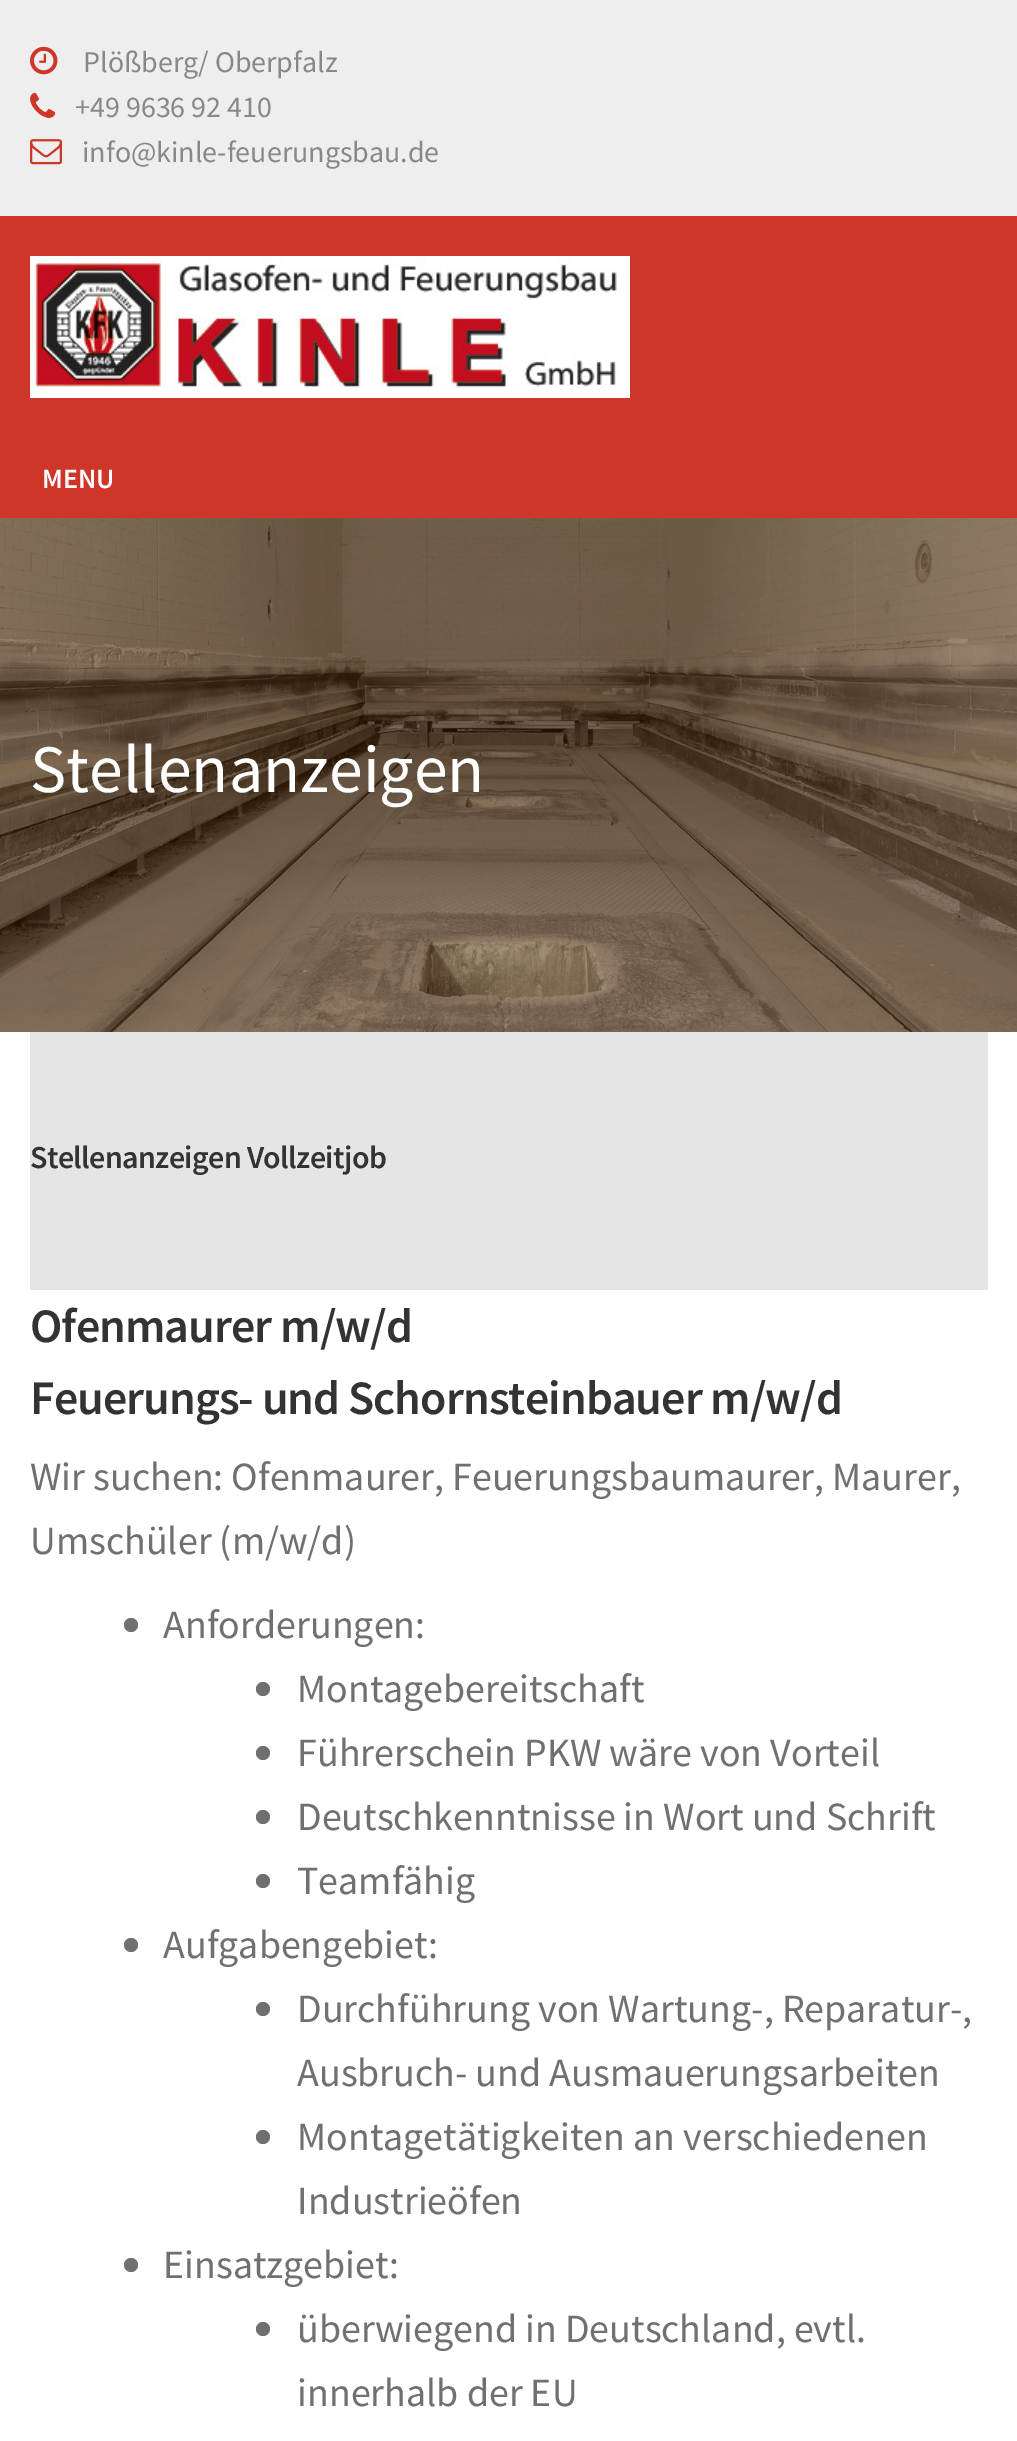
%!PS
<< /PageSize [1017 2441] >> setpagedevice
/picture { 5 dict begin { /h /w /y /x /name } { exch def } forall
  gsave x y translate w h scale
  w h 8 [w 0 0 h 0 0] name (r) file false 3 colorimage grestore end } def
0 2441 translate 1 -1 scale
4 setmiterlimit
1 setgray
0 0 1017 2441 rectfill
0.933 setgray
0 0 1017 216 rectfill
(img1.rgb) 30 46 28 29 picture
/SourceSansPro-Regular [30 0 0 -30 0 0] selectfont
0.533 setgray
83 72 moveto (Plößberg/ Oberpfalz) show
(img2.rgb) 30 92 26 26 picture
75 117 moveto (+49 9636 92 410) show
(img3.rgb) 30 139 32 26 picture
82 162 moveto (info@kinle-feuerungsbau.de) show
0.808 0.212 0.165 setrgbcolor
0 216 1017 302 rectfill
(img4.rgb) 30 256 600 142 picture
/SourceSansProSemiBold-SemiBold [28 0 0 -28 0 0] selectfont
1 setgray
42 488 moveto (MENU) show
(img5.rgb) 0 518 1017 514 picture
/SourceSansPro-Regular [68 0 0 -68 0 0] selectfont
30 792 moveto (Stellenanzeigen) show
0.898 setgray
30 1032 958 258 rectfill
/SourceSansProSemiBold-SemiBold [32 0 0 -32 0 0] selectfont
0.2 setgray
30 1168 moveto -0.65 0 (Stellenanzeigen Vollzeitjob) ashow
/SourceSansProSemiBold-SemiBold [48 0 0 -48 0 0] selectfont
30 1342 moveto -0.95 0 (Ofenmaurer m/w/d) ashow
30 1414 moveto -0.95 0 (Feuerungs- und Schornsteinbauer m/w/d) ashow
/SourceSansPro-Regular [40 0 0 -40 0 0] selectfont
0.439 setgray
30 1490 moveto (Wir suchen: Ofenmaurer, Feuerungsbaumaurer, Maurer,) show
30 1554 moveto (Umschüler \(m/w/d\)) show
newpath 131 1625 7 0 360 arc closepath fill
163 1638 moveto (Anforderungen:) show
newpath 263 1689 7 0 360 arc closepath fill
297 1702 moveto (Montagebereitschaft) show
newpath 263 1753 7 0 360 arc closepath fill
297 1766 moveto (Führerschein PKW wäre von Vorteil) show
newpath 263 1817 7 0 360 arc closepath fill
297 1830 moveto (Deutschkenntnisse in Wort und Schrift) show
newpath 263 1881 7 0 360 arc closepath fill
297 1894 moveto (Teamfähig) show
newpath 131 1945 7 0 360 arc closepath fill
163 1958 moveto (Aufgabengebiet:) show
newpath 263 2009 7 0 360 arc closepath fill
297 2022 moveto (Durchführung von Wartung-, Reparatur-,) show
297 2086 moveto (Ausbruch- und Ausmauerungsarbeiten) show
newpath 263 2137 7 0 360 arc closepath fill
297 2150 moveto (Montagetätigkeiten an verschiedenen) show
297 2214 moveto (Industrieöfen) show
newpath 131 2265 7 0 360 arc closepath fill
163 2278 moveto (Einsatzgebiet:) show
newpath 263 2329 7 0 360 arc closepath fill
297 2342 moveto (überwiegend in Deutschland, evtl.) show
297 2406 moveto (innerhalb der EU) show
showpage
